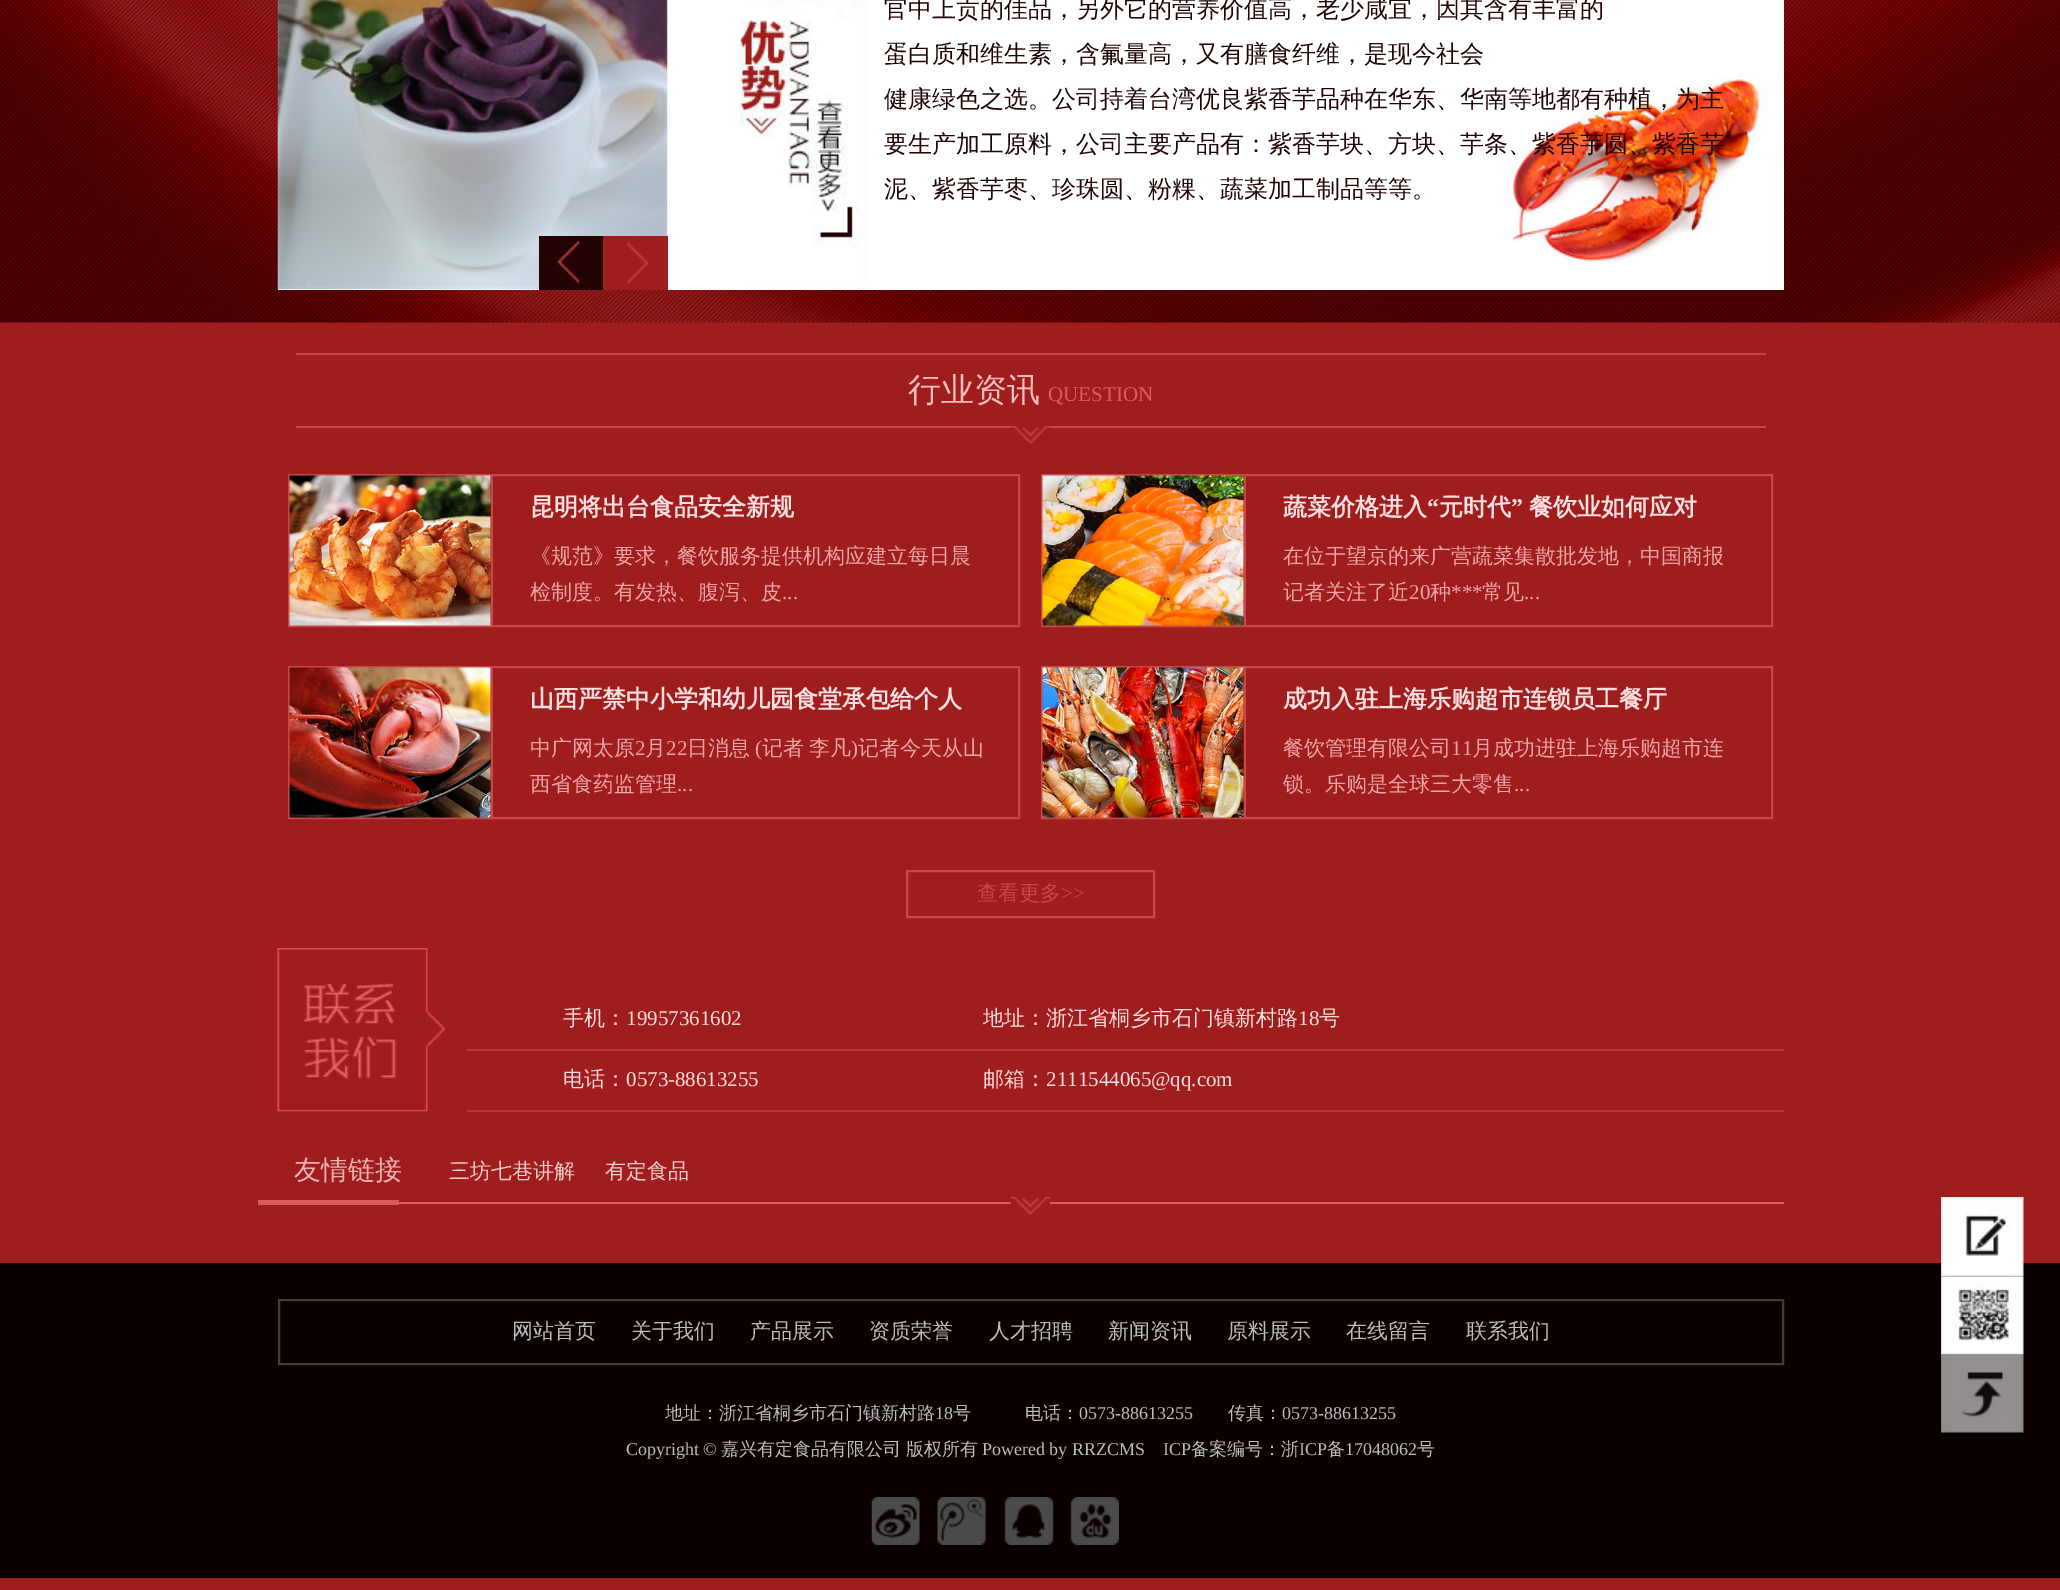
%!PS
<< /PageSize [2060 1590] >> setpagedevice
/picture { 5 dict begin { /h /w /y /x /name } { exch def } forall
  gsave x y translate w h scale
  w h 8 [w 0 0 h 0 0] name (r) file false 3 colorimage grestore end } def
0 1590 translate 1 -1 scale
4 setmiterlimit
0.627 0.114 0.114 setrgbcolor
0 0 2060 1590 rectfill
(img1.rgb) 0 0 2060 323 picture
1 setgray
278 0 1506 290 rectfill
(img2.rgb) 277 0 391 290 picture
0.137 0.016 0.016 setrgbcolor
539 236 64 54 rectfill
(img3.rgb) 557 241 23 43 picture
0.627 0.114 0.114 setrgbcolor
603 236 65 54 rectfill
(img4.rgb) 626 241 23 43 picture
(img5.rgb) 739 0 130 289 picture
(img6.rgb) 1504 74 264 191 picture
/WenQuanYiZenHei-Medium [24 0 0 -24 0 0] selectfont
0.137 0.016 0.016 setrgbcolor
884 17 moveto (官中上贡的佳品，另外它的营养价值高，老少咸宜，因其含有丰富的) show
884 62 moveto (蛋白质和维生素，含氟量高，又有膳食纤维，是现今社会) show
884 107 moveto (健康绿色之选。公司持着台湾优良紫香芋品种在华东、华南等地都有种植，为主) show
884 152 moveto (要生产加工原料，公司主要产品有：紫香芋块、方块、芋条、紫香芋圆、紫香芋) show
884 197 moveto (泥、紫香芋枣、珍珠圆、粉粿、蔬菜加工制品等等。) show
0.796 0.275 0.275 setrgbcolor
296 353 1470 2 rectfill
296 426 1470 2 rectfill
/WenQuanYiZenHei-Medium [33 0 0 -33 0 0] selectfont
0.996 0.745 0.745 setrgbcolor
908 401 moveto (行业资讯) show
/LiberationSerif-Regular [21 0 0 -21 0 0] selectfont
0.875 0.357 0.357 setrgbcolor
1048 401 moveto (QUESTION) show
(img7.rgb) 1011 426 39 18 picture
0.796 0.275 0.275 setrgbcolor
2 setlinewidth
289 475 730 151 rectstroke
491 476 2 150 rectfill
(img8.rgb) 289 475 202 151 picture
/WenQuanYiZenHei-Bold [24 0 0 -24 0 0] selectfont
1 0.875 0.875 setrgbcolor
530 515 moveto (昆明将出台食品安全新规) show
/WenQuanYiZenHei-Medium [21 0 0 -21 0 0] selectfont
0.937 0.651 0.651 setrgbcolor
530 563 moveto (《规范》要求，餐饮服务提供机构应建立每日晨) show
530 599 moveto (检制度。有发热、腹泻、皮) show
/LiberationSerif-Regular [21 0 0 -21 0 0] selectfont
782 599 moveto (...) show
0.796 0.275 0.275 setrgbcolor
1042 475 730 151 rectstroke
1244 476 2 150 rectfill
(img9.rgb) 1042 475 202 151 picture
/WenQuanYiZenHei-Bold [24 0 0 -24 0 0] selectfont
1 0.875 0.875 setrgbcolor
1283 515 moveto (蔬菜价格进入) show
/LiberationSerif-Bold [24 0 0 -24 0 0] selectfont
1427 515 moveto (“) show
/WenQuanYiZenHei-Bold [24 0 0 -24 0 0] selectfont
1439 515 moveto (元时代) show
/LiberationSerif-Bold [24 0 0 -24 0 0] selectfont
1511 515 moveto (”) show
/WenQuanYiZenHei-Bold [24 0 0 -24 0 0] selectfont
1529 515 moveto (餐饮业如何应对) show
/WenQuanYiZenHei-Medium [21 0 0 -21 0 0] selectfont
0.937 0.651 0.651 setrgbcolor
1283 563 moveto (在位于望京的来广营蔬菜集散批发地，中国商报) show
1283 599 moveto (记者关注了近) show
/LiberationSerif-Regular [21 0 0 -21 0 0] selectfont
1409 599 moveto (20) show
/WenQuanYiZenHei-Medium [21 0 0 -21 0 0] selectfont
1430 599 moveto (种) show
/LiberationSerif-Regular [21 0 0 -21 0 0] selectfont
1451 599 moveto (***) show
/WenQuanYiZenHei-Medium [21 0 0 -21 0 0] selectfont
1482 599 moveto (常见) show
/LiberationSerif-Regular [21 0 0 -21 0 0] selectfont
1524 599 moveto (...) show
0.796 0.275 0.275 setrgbcolor
289 667 730 151 rectstroke
491 668 2 150 rectfill
(img10.rgb) 289 667 202 151 picture
/WenQuanYiZenHei-Bold [24 0 0 -24 0 0] selectfont
1 0.875 0.875 setrgbcolor
530 707 moveto (山西严禁中小学和幼儿园食堂承包给个人) show
/WenQuanYiZenHei-Medium [21 0 0 -21 0 0] selectfont
0.937 0.651 0.651 setrgbcolor
530 755 moveto (中广网太原) show
/LiberationSerif-Regular [21 0 0 -21 0 0] selectfont
635 755 moveto (2) show
/WenQuanYiZenHei-Medium [21 0 0 -21 0 0] selectfont
645 755 moveto (月) show
/LiberationSerif-Regular [21 0 0 -21 0 0] selectfont
666 755 moveto (22) show
/WenQuanYiZenHei-Medium [21 0 0 -21 0 0] selectfont
687 755 moveto (日消息) show
/LiberationSerif-Regular [21 0 0 -21 0 0] selectfont
755 755 moveto (\() show
/WenQuanYiZenHei-Medium [21 0 0 -21 0 0] selectfont
762 755 moveto -1 0 32 (记者 李凡) widthshow
/LiberationSerif-Regular [21 0 0 -21 0 0] selectfont
851 755 moveto (\)) show
/WenQuanYiZenHei-Medium [21 0 0 -21 0 0] selectfont
858 755 moveto (记者今天从山) show
530 791 moveto (西省食药监管理) show
/LiberationSerif-Regular [21 0 0 -21 0 0] selectfont
677 791 moveto (...) show
0.796 0.275 0.275 setrgbcolor
1042 667 730 151 rectstroke
1244 668 2 150 rectfill
(img11.rgb) 1042 667 202 151 picture
/WenQuanYiZenHei-Bold [24 0 0 -24 0 0] selectfont
1 0.875 0.875 setrgbcolor
1283 707 moveto (成功入驻上海乐购超市连锁员工餐厅) show
/WenQuanYiZenHei-Medium [21 0 0 -21 0 0] selectfont
0.937 0.651 0.651 setrgbcolor
1283 755 moveto (餐饮管理有限公司) show
/LiberationSerif-Regular [21 0 0 -21 0 0] selectfont
1451 755 moveto (11) show
/WenQuanYiZenHei-Medium [21 0 0 -21 0 0] selectfont
1472 755 moveto (月成功进驻上海乐购超市连) show
1283 791 moveto (锁。乐购是全球三大零售) show
/LiberationSerif-Regular [21 0 0 -21 0 0] selectfont
1514 791 moveto (...) show
0.796 0.275 0.275 setrgbcolor
907 871 247 46 rectstroke
/WenQuanYiZenHei-Medium [21 0 0 -21 0 0] selectfont
977 900 moveto (查看更多) show
/LiberationSerif-Regular [21 0 0 -21 0 0] selectfont
1061 900 moveto (>>) show
(img12.rgb) 277 948 169 164 picture
0.733 0.22 0.22 setrgbcolor
467 1049 1317 2 rectfill
/WenQuanYiZenHei-Medium [21 0 0 -21 0 0] selectfont
1 0.875 0.875 setrgbcolor
563 1025 moveto (手机：) show
/LiberationSerif-Regular [21 0 0 -21 0 0] selectfont
626 1025 moveto (19957361602) show
/WenQuanYiZenHei-Medium [21 0 0 -21 0 0] selectfont
983 1025 moveto (地址：浙江省桐乡市石门镇新村路) show
/LiberationSerif-Regular [21 0 0 -21 0 0] selectfont
1298 1025 moveto (18) show
/WenQuanYiZenHei-Medium [21 0 0 -21 0 0] selectfont
1319 1025 moveto (号) show
0.733 0.22 0.22 setrgbcolor
467 1110 1317 2 rectfill
1 0.875 0.875 setrgbcolor
563 1086 moveto (电话：) show
/LiberationSerif-Regular [21 0 0 -21 0 0] selectfont
626 1086 moveto (0573-88613255) show
/WenQuanYiZenHei-Medium [21 0 0 -21 0 0] selectfont
983 1086 moveto (邮箱：) show
/LiberationSerif-Regular [21 0 0 -21 0 0] selectfont
1046 1086 moveto (2111544065@qq.com) show
0.855 0.357 0.357 setrgbcolor
399 1202 1385 2 rectfill
/WenQuanYiZenHei-Medium [27 0 0 -27 0 0] selectfont
0.937 0.702 0.702 setrgbcolor
294 1179 moveto (友情链接) show
0.855 0.357 0.357 setrgbcolor
258 1200 141 5 rectfill
/WenQuanYiZenHei-Medium [21 0 0 -21 0 0] selectfont
0.957 0.808 0.808 setrgbcolor
449 1178 moveto (三坊七巷讲解) show
605 1178 moveto (有定食品) show
(img7.rgb) 1011 1197 39 18 picture
0.043 0 0 setrgbcolor
0 1263 2060 315 rectfill
0.243 setgray
279 1300 1504 64 rectstroke
0.741 setgray
512 1338 moveto (网站首页) show
631 1338 moveto (关于我们) show
750 1338 moveto (产品展示) show
869 1338 moveto (资质荣誉) show
989 1338 moveto (人才招聘) show
1108 1338 moveto (新闻资讯) show
1227 1338 moveto (原料展示) show
1346 1338 moveto (在线留言) show
1466 1338 moveto (联系我们) show
/WenQuanYiZenHei-Medium [18 0 0 -18 0 0] selectfont
665 1419 moveto (地址：浙江省桐乡市石门镇新村路) show
/LiberationSerif-Regular [18 0 0 -18 0 0] selectfont
935 1419 moveto (18) show
/WenQuanYiZenHei-Medium [18 0 0 -18 0 0] selectfont
953 1419 moveto (号　　　电话：) show
/LiberationSerif-Regular [18 0 0 -18 0 0] selectfont
1079 1419 moveto (0573-88613255) show
/WenQuanYiZenHei-Medium [18 0 0 -18 0 0] selectfont
1228 1419 moveto (传真：) show
/LiberationSerif-Regular [18 0 0 -18 0 0] selectfont
1282 1419 moveto (0573-88613255) show
626 1455 moveto (Copyright ©) show
/WenQuanYiZenHei-Medium [18 0 0 -18 0 0] selectfont
721 1455 moveto (嘉兴有定食品有限公司) show
906 1455 moveto (版权所有) show
/LiberationSerif-Regular [18 0 0 -18 0 0] selectfont
982 1455 moveto (Powered by RRZCMS) show
1163 1455 moveto (ICP) show
/WenQuanYiZenHei-Medium [18 0 0 -18 0 0] selectfont
1191 1455 moveto (备案编号：浙) show
/LiberationSerif-Regular [18 0 0 -18 0 0] selectfont
1299 1455 moveto (ICP) show
/WenQuanYiZenHei-Medium [18 0 0 -18 0 0] selectfont
1327 1455 moveto (备) show
/LiberationSerif-Regular [18 0 0 -18 0 0] selectfont
1345 1455 moveto (17048062) show
/WenQuanYiZenHei-Medium [18 0 0 -18 0 0] selectfont
1417 1455 moveto (号) show
(img13.rgb) 871 1497 49 48 picture
(img14.rgb) 937 1497 50 48 picture
(img15.rgb) 1004 1497 50 48 picture
(img16.rgb) 1070 1497 49 48 picture
(img17.rgb) 1941 1197 83 80 picture
(img18.rgb) 1941 1276 83 79 picture
(img19.rgb) 1941 1354 83 79 picture
showpage
